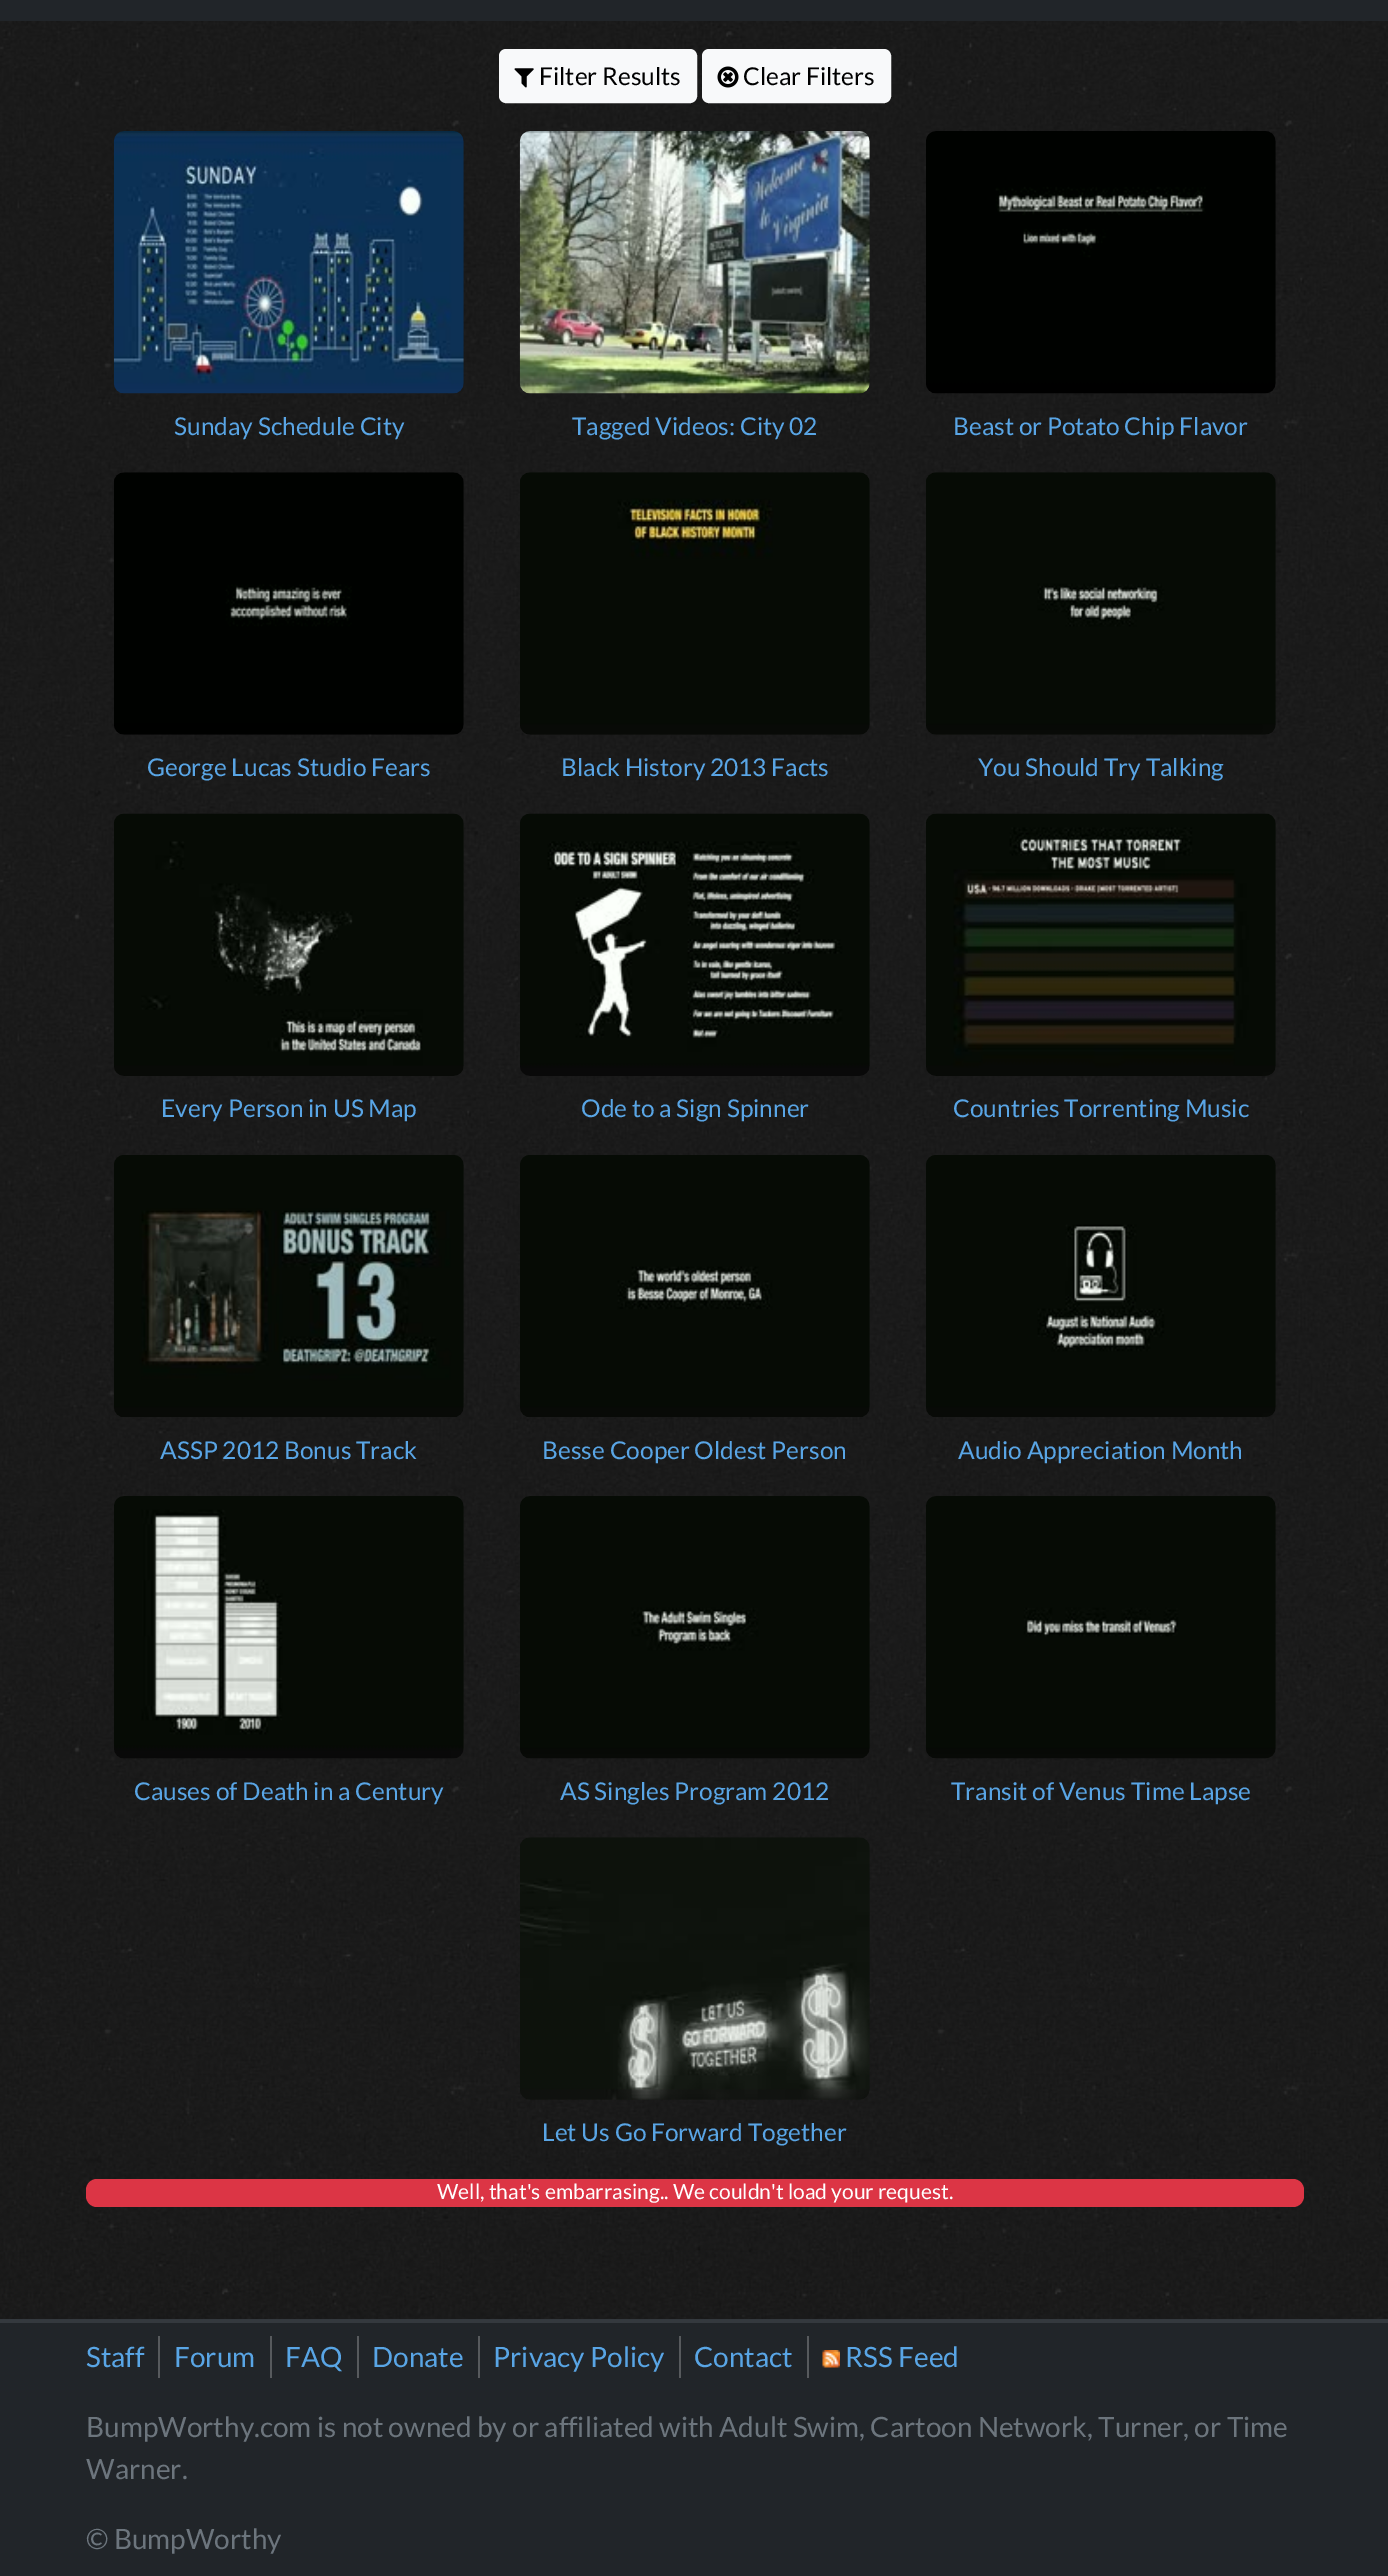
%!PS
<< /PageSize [1388 2576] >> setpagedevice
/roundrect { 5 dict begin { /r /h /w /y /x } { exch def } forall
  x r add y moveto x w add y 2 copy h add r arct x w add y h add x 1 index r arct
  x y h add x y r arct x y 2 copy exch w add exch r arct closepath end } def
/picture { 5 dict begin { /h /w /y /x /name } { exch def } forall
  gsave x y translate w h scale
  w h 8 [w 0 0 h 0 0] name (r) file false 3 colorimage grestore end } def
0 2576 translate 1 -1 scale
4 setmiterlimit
1 setgray
0 0 1388 2576 rectfill
(img1.rgb) 0 21 1388 2298 picture
0.129 0.145 0.161 setrgbcolor
0 0 1388 21 rectfill
0.973 0.976 0.98 setrgbcolor
500 50 196 52 6 roundrect gsave fill grestore
2 setlinewidth
stroke
(img2.rgb) 514 68 20 20 picture
/Lato-Regular [24.5 0 0 -24.5 0 0] selectfont
0 setgray
539 85 moveto (Filter Results) show
0.973 0.976 0.98 setrgbcolor
703 50 187 52 6 roundrect gsave fill grestore
stroke
(img3.rgb) 717 66 22 22 picture
0 setgray
743 85 moveto (Clear Filters) show
(img4.rgb) 113 131 351 263 picture
0.349 0.647 0.898 setrgbcolor
174 435 moveto (Sunday Schedule City) show
(img5.rgb) 519 131 351 263 picture
572 435 moveto (Tagged Videos: City 02) show
(img6.rgb) 926 131 350 263 picture
953 435 moveto (Beast or Potato Chip Flavor) show
(img7.rgb) 114 472 350 263 picture
147 776 moveto (George Lucas Studio Fears) show
(img8.rgb) 520 472 350 263 picture
561 776 moveto (Black History 2013 Facts) show
(img9.rgb) 926 472 350 263 picture
978 776 moveto (You Should Try Talking) show
(img10.rgb) 114 813 350 263 picture
161 1117 moveto (Every Person in US Map) show
(img11.rgb) 520 813 350 263 picture
581 1117 moveto (Ode to a Sign Spinner) show
(img12.rgb) 926 813 350 263 picture
953 1117 moveto (Countries Torrenting Music) show
(img13.rgb) 114 1155 350 262 picture
160 1459 moveto (ASSP 2012 Bonus Track) show
(img14.rgb) 520 1155 350 262 picture
542 1459 moveto (Besse Cooper Oldest Person) show
(img15.rgb) 926 1155 350 262 picture
958 1459 moveto (Audio Appreciation Month) show
(img16.rgb) 114 1496 350 263 picture
134 1800 moveto (Causes of Death in a Century) show
(img17.rgb) 520 1496 350 263 picture
560 1800 moveto (AS Singles Program 2012) show
(img18.rgb) 926 1496 350 263 picture
951 1800 moveto (Transit of Venus Time Lapse) show
(img19.rgb) 520 1837 350 263 picture
542 2141 moveto (Let Us Go Forward Together) show
0.863 0.208 0.271 setrgbcolor
86 2179 1218 28 11 roundrect fill
/Lato-Regular [21 0 0 -21 0 0] selectfont
1 setgray
437 2199 moveto (Well, that's embarrasing.. We couldn't load your request.) show
0.129 0.145 0.161 setrgbcolor
0 2323 1388 253 rectfill
0.204 0.224 0.243 setrgbcolor
0 2319 1388 4 rectfill
/Lato-Regular [28 0 0 -28 0 0] selectfont
0.349 0.647 0.898 setrgbcolor
86 2367 moveto (Staff) show
0.341 0.353 0.365 setrgbcolor
158 2336 2 42 rectfill
0.349 0.647 0.898 setrgbcolor
174 2367 moveto (Forum) show
0.341 0.353 0.365 setrgbcolor
270 2336 2 42 rectfill
0.349 0.647 0.898 setrgbcolor
285 2367 moveto (FAQ) show
0.341 0.353 0.365 setrgbcolor
357 2336 2 42 rectfill
0.349 0.647 0.898 setrgbcolor
372 2367 moveto (Donate) show
0.341 0.353 0.365 setrgbcolor
478 2336 2 42 rectfill
0.349 0.647 0.898 setrgbcolor
493 2367 moveto (Privacy Policy) show
0.341 0.353 0.365 setrgbcolor
679 2336 2 42 rectfill
0.349 0.647 0.898 setrgbcolor
694 2367 moveto (Contact) show
0.341 0.353 0.365 setrgbcolor
807 2336 2 42 rectfill
(img20.rgb) 822 2350 18 18 picture
0.349 0.647 0.898 setrgbcolor
845 2367 moveto (RSS Feed) show
0.424 0.459 0.49 setrgbcolor
86 2437 moveto (BumpWorthy.com is not owned by or affiliated with Adult Swim, Cartoon Network, Turner, or Time) show
86 2479 moveto (Warner.) show
86 2549 moveto (© BumpWorthy) show
showpage
